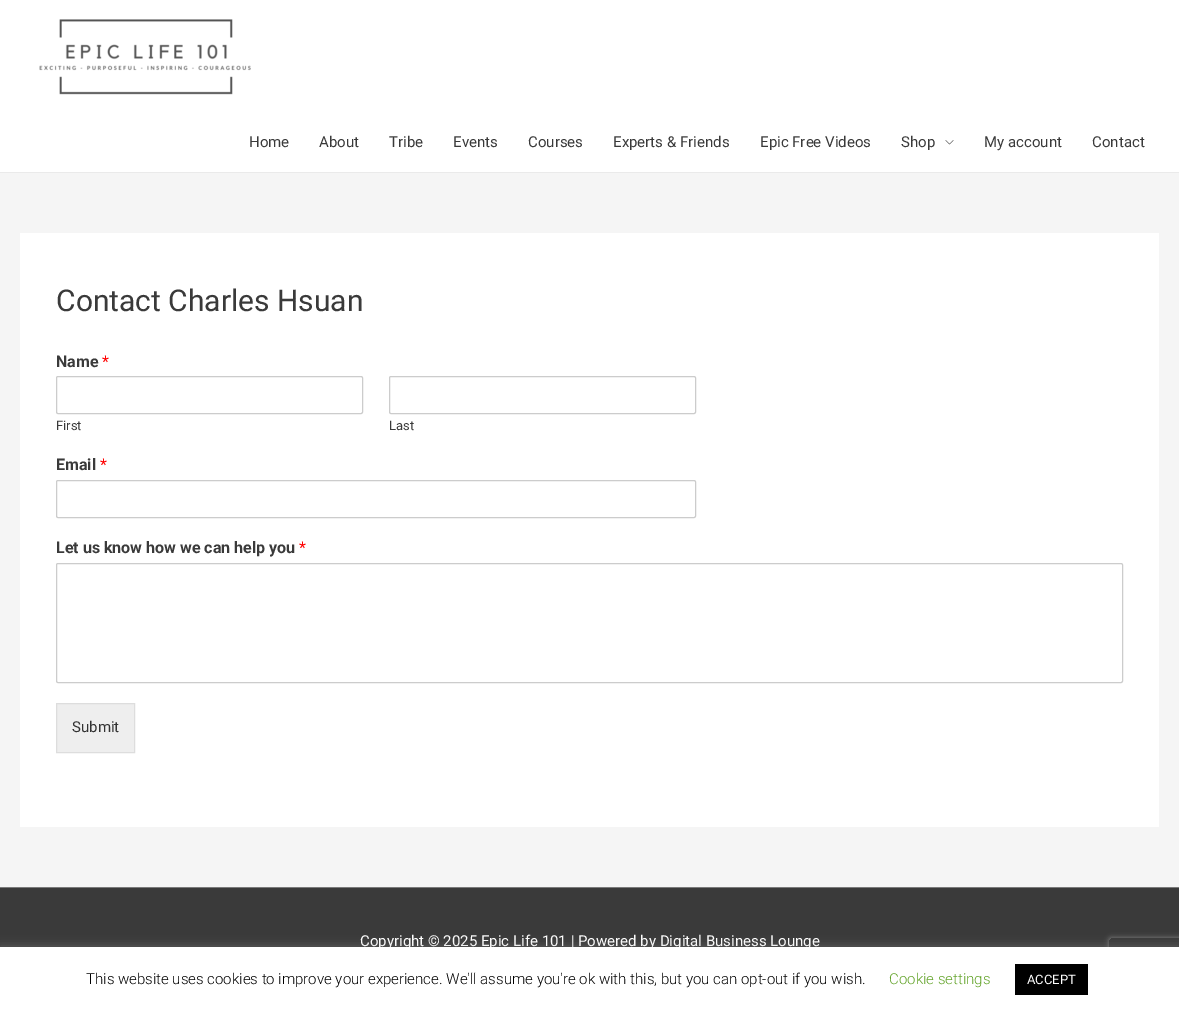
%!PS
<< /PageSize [1179 1012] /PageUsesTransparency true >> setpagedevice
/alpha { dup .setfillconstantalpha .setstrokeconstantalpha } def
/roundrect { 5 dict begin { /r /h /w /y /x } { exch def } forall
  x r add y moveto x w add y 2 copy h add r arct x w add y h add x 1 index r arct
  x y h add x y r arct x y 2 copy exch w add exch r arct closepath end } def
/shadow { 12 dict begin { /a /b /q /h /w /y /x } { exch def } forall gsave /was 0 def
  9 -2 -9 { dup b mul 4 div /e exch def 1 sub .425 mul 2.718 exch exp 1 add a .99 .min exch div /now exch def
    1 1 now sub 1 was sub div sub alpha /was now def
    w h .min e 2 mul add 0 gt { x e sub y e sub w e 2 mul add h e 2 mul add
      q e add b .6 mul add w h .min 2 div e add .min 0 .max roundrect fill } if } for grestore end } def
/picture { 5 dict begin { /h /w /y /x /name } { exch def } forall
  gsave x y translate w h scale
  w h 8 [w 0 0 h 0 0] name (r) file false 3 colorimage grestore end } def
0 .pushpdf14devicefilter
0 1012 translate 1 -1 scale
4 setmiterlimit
0.961 setgray
0 0 1179 1012 rectfill
1 setgray
0 0 1179 172 rectfill
0.918 setgray
0 172 1179 1 rectfill
(img1.rgb) 39 19 212 76 picture
/Roboto-Regular [15 0 0 -15 0 0] selectfont
0.227 setgray
249 147 moveto (Home) show
319 147 moveto (About) show
389 147 moveto (Tribe) show
453 147 moveto (Events) show
528 147 moveto (Courses) show
613 147 moveto (Experts & Friends) show
760 147 moveto (Epic Free Videos) show
901 147 moveto (Shop) show
(img2.rgb) 945 140 9 5 picture
984 147 moveto (My account) show
1092 147 moveto (Contact) show
1 setgray
20 233 1139 594 rectfill
/Roboto-Regular [30 0 0 -30 0 0] selectfont
0.227 setgray
56 311 moveto (Contact Charles Hsuan) show
/Roboto-Bold [16 0 0 -16 0 0] selectfont
56 367 moveto (Name) show
/Roboto-Regular [16 0 0 -16 0 0] selectfont
1 0 0 setrgbcolor
102 367 moveto (*) show
0.8 setgray
56.5 376.5 306 37 1.5 roundrect stroke
/Roboto-Regular [13 0 0 -13 0 0] selectfont
0.227 setgray
56 430 moveto (First) show
0.8 setgray
389.5 376.5 306 37 1.5 roundrect stroke
0.227 setgray
389 430 moveto (Last) show
/Roboto-Bold [16 0 0 -16 0 0] selectfont
56 470 moveto (Email) show
/Roboto-Regular [16 0 0 -16 0 0] selectfont
1 0 0 setrgbcolor
100 470 moveto (*) show
0.8 setgray
56.5 480.5 639 37 1.5 roundrect stroke
/Roboto-Bold [16 0 0 -16 0 0] selectfont
0.227 setgray
56 553 moveto (Let us know how we can help you) show
/Roboto-Regular [16 0 0 -16 0 0] selectfont
1 0 0 setrgbcolor
299 553 moveto (*) show
0.8 setgray
56.5 563.5 1066 119 1.5 roundrect stroke
0.933 setgray
newpath 56.5 703.5 moveto 134.5 703.5 lineto 134.5 752.5 lineto 56.5 752.5 lineto closepath gsave fill grestore
0.867 setgray
stroke
/Roboto-Regular [15 0 0 -15 0 0] selectfont
0.2 setgray
72 732 moveto (Submit) show
0.478 setgray
0 887 1179 1 rectfill
0.227 setgray
0 888 1179 59 rectfill
1 setgray
360 946 moveto (Copyright © 2025 Epic Life 101 | Powered by Digital Business Lounge) show
0.675 0.671 0.671 setrgbcolor
0 946 1179 65 0 5 0.3 shadow
gsave
newpath 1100 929 moveto 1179 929 lineto 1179 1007 lineto 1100 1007 lineto closepath 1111 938 moveto 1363 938 lineto 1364 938 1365 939 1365 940 curveto 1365 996 lineto 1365 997 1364 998 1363 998 curveto 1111 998 lineto 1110 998 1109 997 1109 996 curveto 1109 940 lineto 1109 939 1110 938 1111 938 curveto closepath eoclip newpath
0.502 setgray
1109 938 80 60 2 2.5 1 shadow
grestore
1 setgray
0 947 1179 65 rectfill
/Roboto-Light [15 0 0 -15 0 0] selectfont
0 setgray
86 984 moveto (This website uses cookies to improve your experience. We'll assume you're ok with this, but you can opt-out if you wish.) show
0.384 0.639 0.161 setrgbcolor
889 984 moveto (Cookie settings) show
0 setgray
1015 964 73 31 rectfill
/Roboto-Regular [13 0 0 -13 0 0] selectfont
1 setgray
1027 984 moveto (ACCEPT) show
.poppdf14devicefilter showpage
